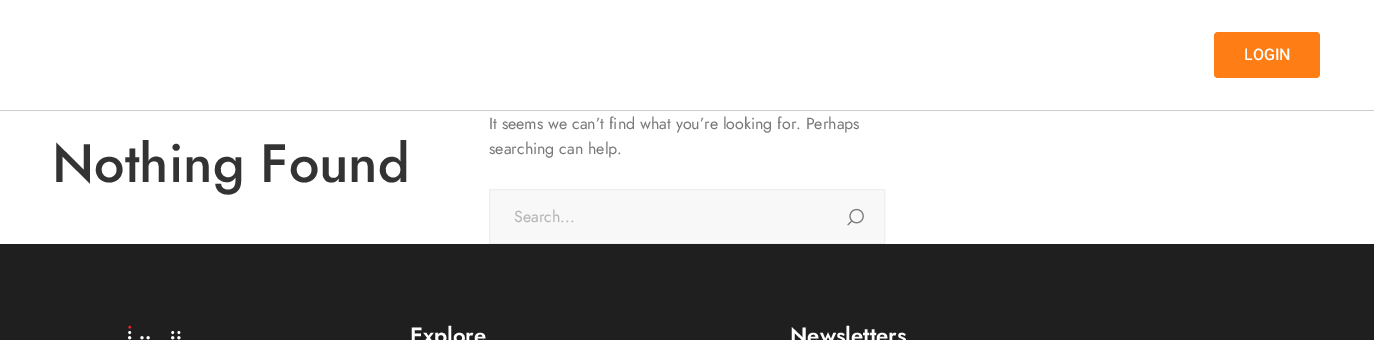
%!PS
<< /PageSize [1374 340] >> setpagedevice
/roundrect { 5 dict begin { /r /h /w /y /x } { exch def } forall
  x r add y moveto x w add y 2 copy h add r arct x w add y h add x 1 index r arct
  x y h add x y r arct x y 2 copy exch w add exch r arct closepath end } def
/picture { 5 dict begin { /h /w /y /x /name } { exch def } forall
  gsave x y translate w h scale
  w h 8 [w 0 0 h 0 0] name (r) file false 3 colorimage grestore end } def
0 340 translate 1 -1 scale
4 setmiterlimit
1 setgray
0 0 1374 340 rectfill
0.8 setgray
0 110 1374 1 rectfill
0.996 0.49 0.082 setrgbcolor
1214 32 106 46 4 roundrect fill
/Roboto-Medium [16 0 0 -16 0 0] selectfont
1 setgray
1244 60 moveto (LOGIN) show
/Jost-Medium [54 0 0 -54 0 0] selectfont
0.2 setgray
52 182 moveto (Nothing Found) show
/Jost-Regular [16 0 0 -16 0 0] selectfont
0.471 setgray
489 129 moveto (It seems we can’t find what you’re looking for. Perhaps) show
489 154 moveto (searching can help.) show
0.973 setgray
newpath 489.5 189.5 moveto 884.5 189.5 lineto 884.5 243.5 lineto 489.5 243.5 lineto closepath gsave fill grestore
0.933 setgray
stroke
0.702 setgray
514 222 moveto (Search...) show
(img1.rgb) 847 208 17 18 picture
0.122 setgray
0 244 1374 96 rectfill
(img2.rgb) 128 325 53 15 picture
/Jost-SemiBold [22 0 0 -22 0 0] selectfont
1 setgray
410 343 moveto (Explore) show
790 343 moveto (Newsletters) show
showpage
